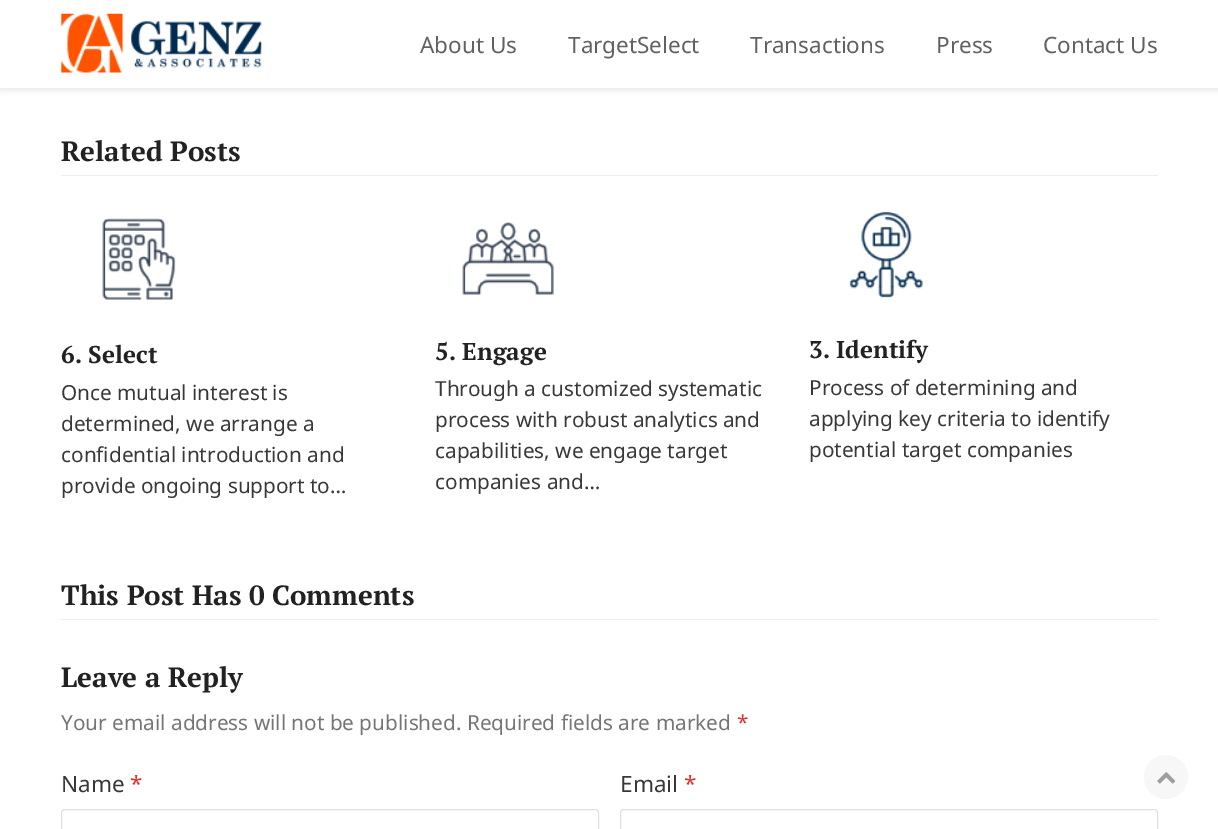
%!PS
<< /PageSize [1218 829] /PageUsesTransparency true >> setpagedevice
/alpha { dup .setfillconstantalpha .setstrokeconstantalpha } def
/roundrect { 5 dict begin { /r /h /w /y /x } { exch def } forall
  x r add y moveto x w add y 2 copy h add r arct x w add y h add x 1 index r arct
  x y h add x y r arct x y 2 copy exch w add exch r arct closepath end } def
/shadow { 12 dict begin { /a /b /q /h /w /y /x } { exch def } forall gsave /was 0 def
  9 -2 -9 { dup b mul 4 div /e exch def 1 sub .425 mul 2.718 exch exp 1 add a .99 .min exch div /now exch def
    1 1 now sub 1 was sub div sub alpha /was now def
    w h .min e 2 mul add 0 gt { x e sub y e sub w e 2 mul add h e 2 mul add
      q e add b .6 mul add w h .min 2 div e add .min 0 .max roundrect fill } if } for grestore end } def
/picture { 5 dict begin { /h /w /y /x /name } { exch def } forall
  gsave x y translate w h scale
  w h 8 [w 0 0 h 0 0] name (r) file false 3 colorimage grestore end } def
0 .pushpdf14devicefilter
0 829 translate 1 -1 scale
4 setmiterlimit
1 setgray
0 0 1218 829 rectfill
0 setgray
0 3 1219 87 0 3 0.1 shadow
1 setgray
0 0 1218 88 rectfill
(img1.rgb) 61 13 201 60 picture
/NotoSans-Regular [22.5 0 0 -22.5 0 0] selectfont
0.38 setgray
420 53 moveto (About Us) show
568 53 moveto (TargetSelect) show
750 53 moveto (Transactions) show
936 53 moveto (Press) show
1043 53 moveto (Contact Us) show
0.933 setgray
61 175 1097 1 rectfill
/PTSerif-Bold [27.75 0 0 -27.75 0 0] selectfont
0.133 setgray
61 161 moveto (Related Posts) show
(img2.rgb) 102 218 74 82 picture
/PTSerif-Bold [24.25 0 0 -24.25 0 0] selectfont
61 363 moveto (6. Select) show
/NotoSans-Regular [20.75 0 0 -20.75 0 0] selectfont
0.22 setgray
61 400 moveto (Once mutual interest is) show
61 431 moveto (determined, we arrange a) show
61 462 moveto (confidential introduction and) show
61 493 moveto (provide ongoing support to…) show
(img3.rgb) 462 222 92 73 picture
/PTSerif-Bold [24.25 0 0 -24.25 0 0] selectfont
0.133 setgray
435 360 moveto (5. Engage) show
/NotoSans-Regular [20.75 0 0 -20.75 0 0] selectfont
0.22 setgray
435 396 moveto (Through a customized systematic) show
435 427 moveto (process with robust analytics and) show
435 458 moveto (capabilities, we engage target) show
435 489 moveto (companies and…) show
(img4.rgb) 849 211 74 87 picture
/PTSerif-Bold [24.25 0 0 -24.25 0 0] selectfont
0.133 setgray
809 358 moveto (3. Identify) show
/NotoSans-Regular [20.75 0 0 -20.75 0 0] selectfont
0.22 setgray
809 395 moveto (Process of determining and) show
809 426 moveto (applying key criteria to identify) show
809 457 moveto (potential target companies) show
0.933 setgray
61 619 1097 1 rectfill
/PTSerif-Bold [27.75 0 0 -27.75 0 0] selectfont
0.133 setgray
61 605 moveto (This Post Has 0 Comments) show
61 687 moveto (Leave a Reply) show
/NotoSans-Regular [20.75 0 0 -20.75 0 0] selectfont
0.459 setgray
61 730 moveto (Your email address will not be published. Required fields are marked) show
0.863 0.196 0.196 setrgbcolor
737 730 moveto (*) show
/NotoSans-Regular [22.5 0 0 -22.5 0 0] selectfont
0.22 setgray
61 792 moveto (Name) show
0.863 0.196 0.196 setrgbcolor
130 792 moveto (*) show
0.878 setgray
61.5 809.5 537 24 3.5 roundrect stroke
0.22 setgray
620 792 moveto (Email) show
0.863 0.196 0.196 setrgbcolor
684 792 moveto (*) show
0.878 setgray
620.5 809.5 537 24 3.5 roundrect stroke
0.969 setgray
newpath 1166 777 22 0 360 arc closepath fill
(img5.rgb) 1157 772 19 12 picture
.poppdf14devicefilter showpage
